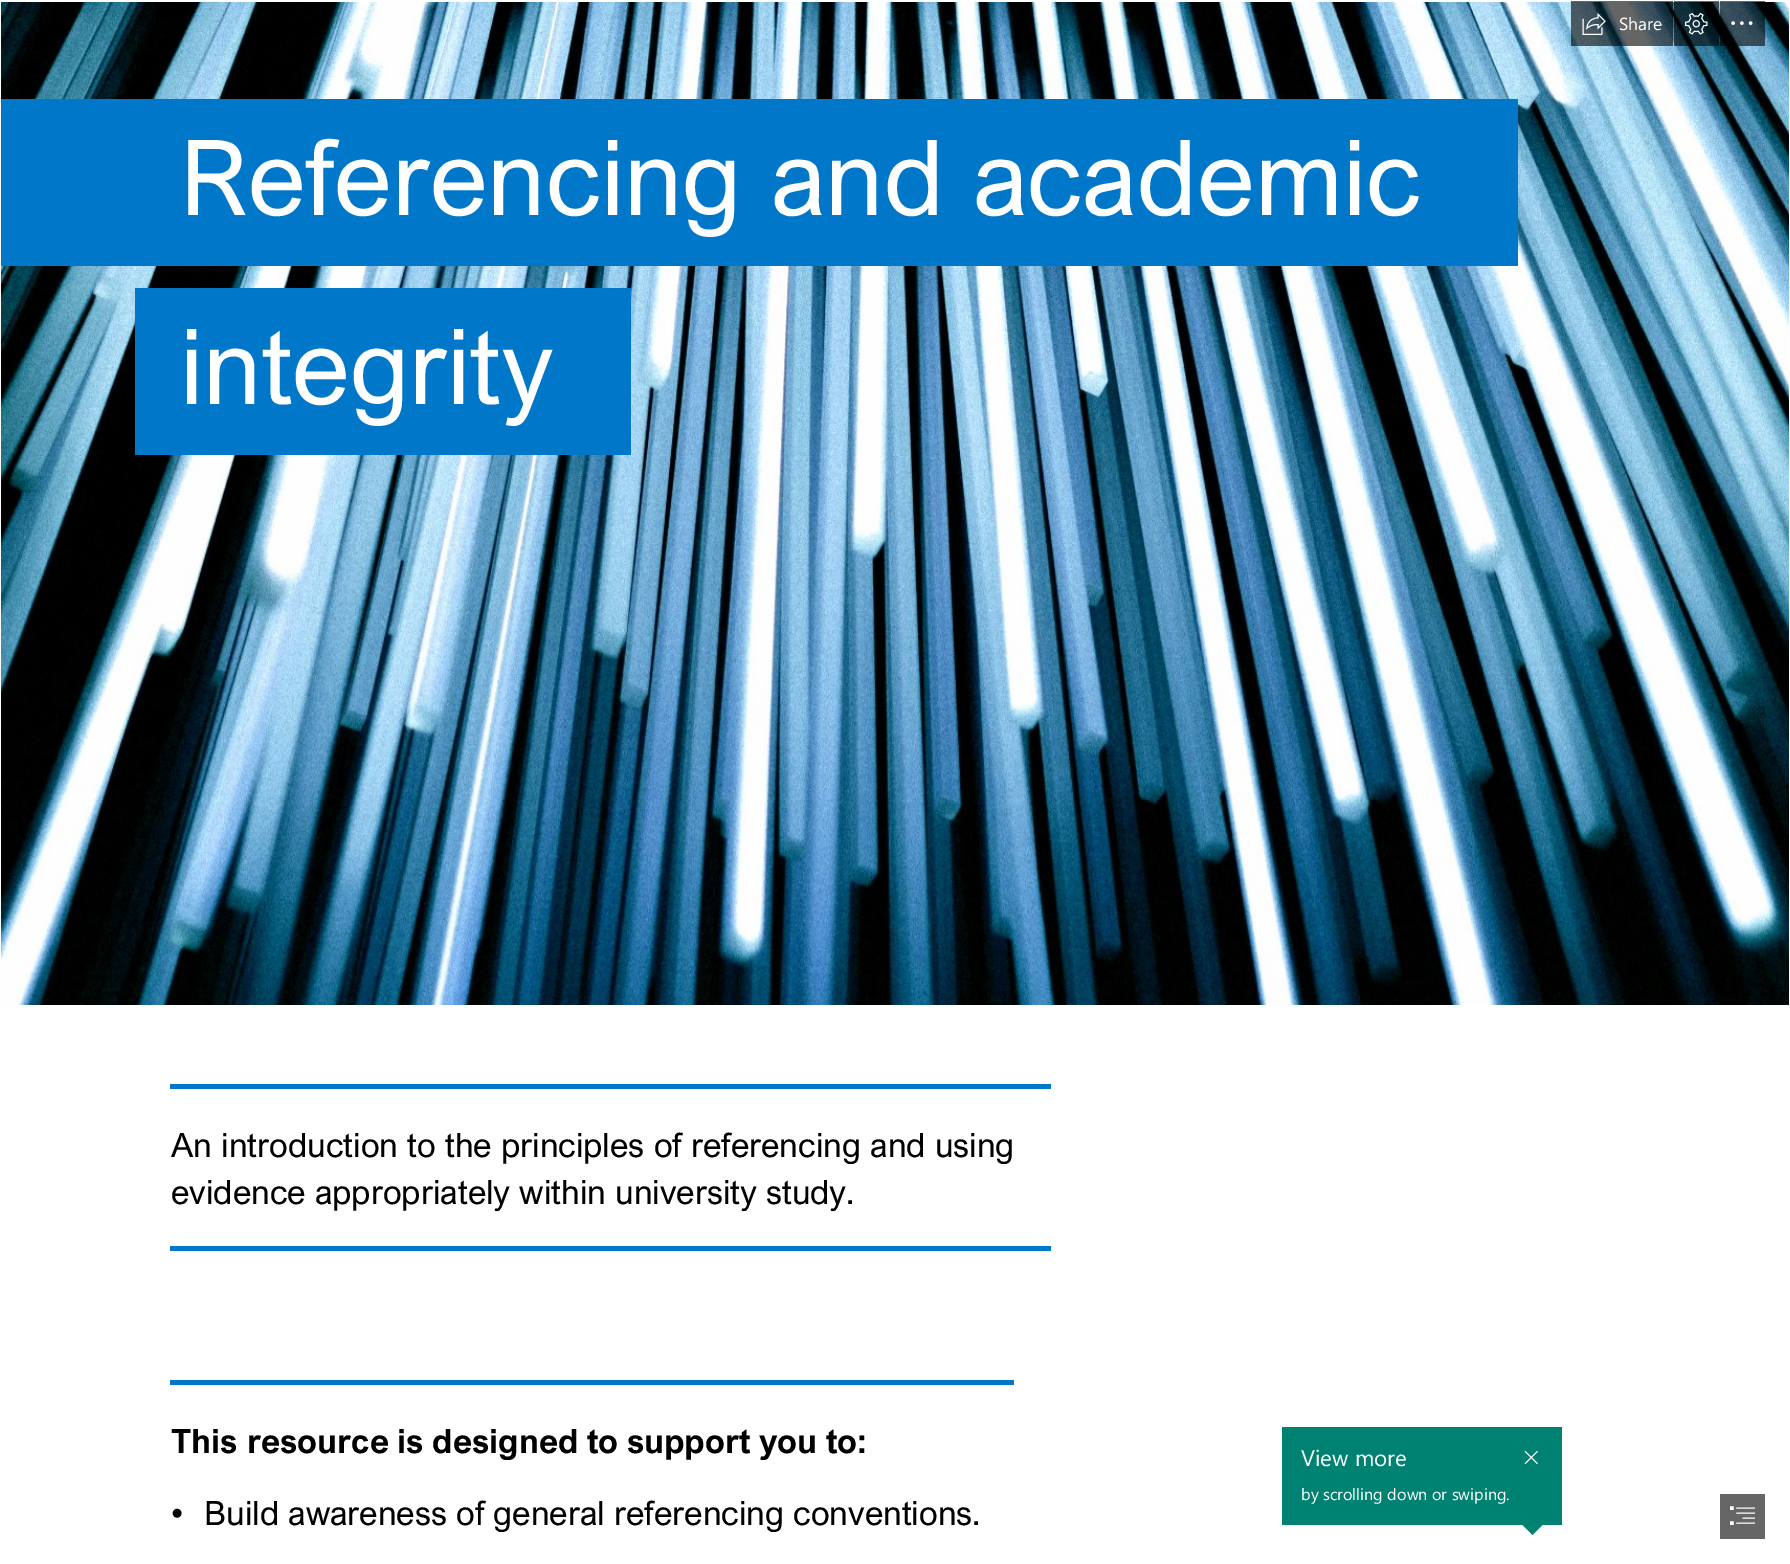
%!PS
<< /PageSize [1790 1564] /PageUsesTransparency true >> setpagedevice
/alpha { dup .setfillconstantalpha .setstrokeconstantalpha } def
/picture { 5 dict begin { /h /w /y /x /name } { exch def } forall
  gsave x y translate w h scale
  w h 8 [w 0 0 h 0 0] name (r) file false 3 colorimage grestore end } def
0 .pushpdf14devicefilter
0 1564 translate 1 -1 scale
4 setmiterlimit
1 setgray
0 0 1790 1564 rectfill
(img4.rgb) 1 2 1788 1003 picture
0.6 alpha
0 setgray
1571 1 102 45 rectfill
1 alpha
(img1.rgb) 1582 13 24 22 picture
/SegoeUI-Regular [17.5 0 0 -17.5 0 0] selectfont
1 setgray
1619 30 moveto (Share) show
0.6 alpha
0 setgray
1674 1 45 45 rectfill
1 alpha
(img2.rgb) 1685 12 23 23 picture
0.6 alpha
1720 1 45 45 rectfill
1 alpha
(img3.rgb) 1731 21 22 4 picture
0 0.467 0.784 setrgbcolor
1 99 1517 167 rectfill
/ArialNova-Regular [104.9 0 0 -104.9 0 0] selectfont
1 setgray
180 215 moveto (Referencing and academic) show
0 0.467 0.784 setrgbcolor
135 288 496 167 rectfill
1 setgray
180 404 moveto (integrity) show
0 0.467 0.784 setrgbcolor
170 1084 881 5 rectfill
/ArialNova-Regular [33.55 0 0 -33.55 0 0] selectfont
0 setgray
171 1157 moveto (An introduction to the principles of referencing and using) show
171 1204 moveto (evidence appropriately within university study.) show
0 0.467 0.784 setrgbcolor
170 1246 881 5 rectfill
170 1380 844 5 rectfill
/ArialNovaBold-Bold [33.55 0 0 -33.55 0 0] selectfont
0 setgray
171 1453 moveto (This) show
247 1453 moveto (resource is designed to support you to:) show
/ArialNova-Regular [33.55 0 0 -33.55 0 0] selectfont
171 1525 moveto (•) show
204 1525 moveto (Build awareness of general referencing conventions.) show
0 0.51 0.447 setrgbcolor
1282 1427 280 98 rectfill
/SegoeUI-Regular [22.5 0 0 -22.5 0 0] selectfont
1 setgray
1301 1466 moveto (View more) show
/SegoeUI-Regular [16.25 0 0 -16.25 0 0] selectfont
1301 1500 moveto (by scrolling down or swiping.) show
(img5.rgb) 1524 1450 14 15 picture
0 0.51 0.447 setrgbcolor
newpath 1522.5 1525 moveto 1542.5 1525 lineto 1532.5 1535 lineto closepath fill
0.4 setgray
1720 1494 45 45 rectfill
(img6.rgb) 1730 1506 25 19 picture
.poppdf14devicefilter showpage
